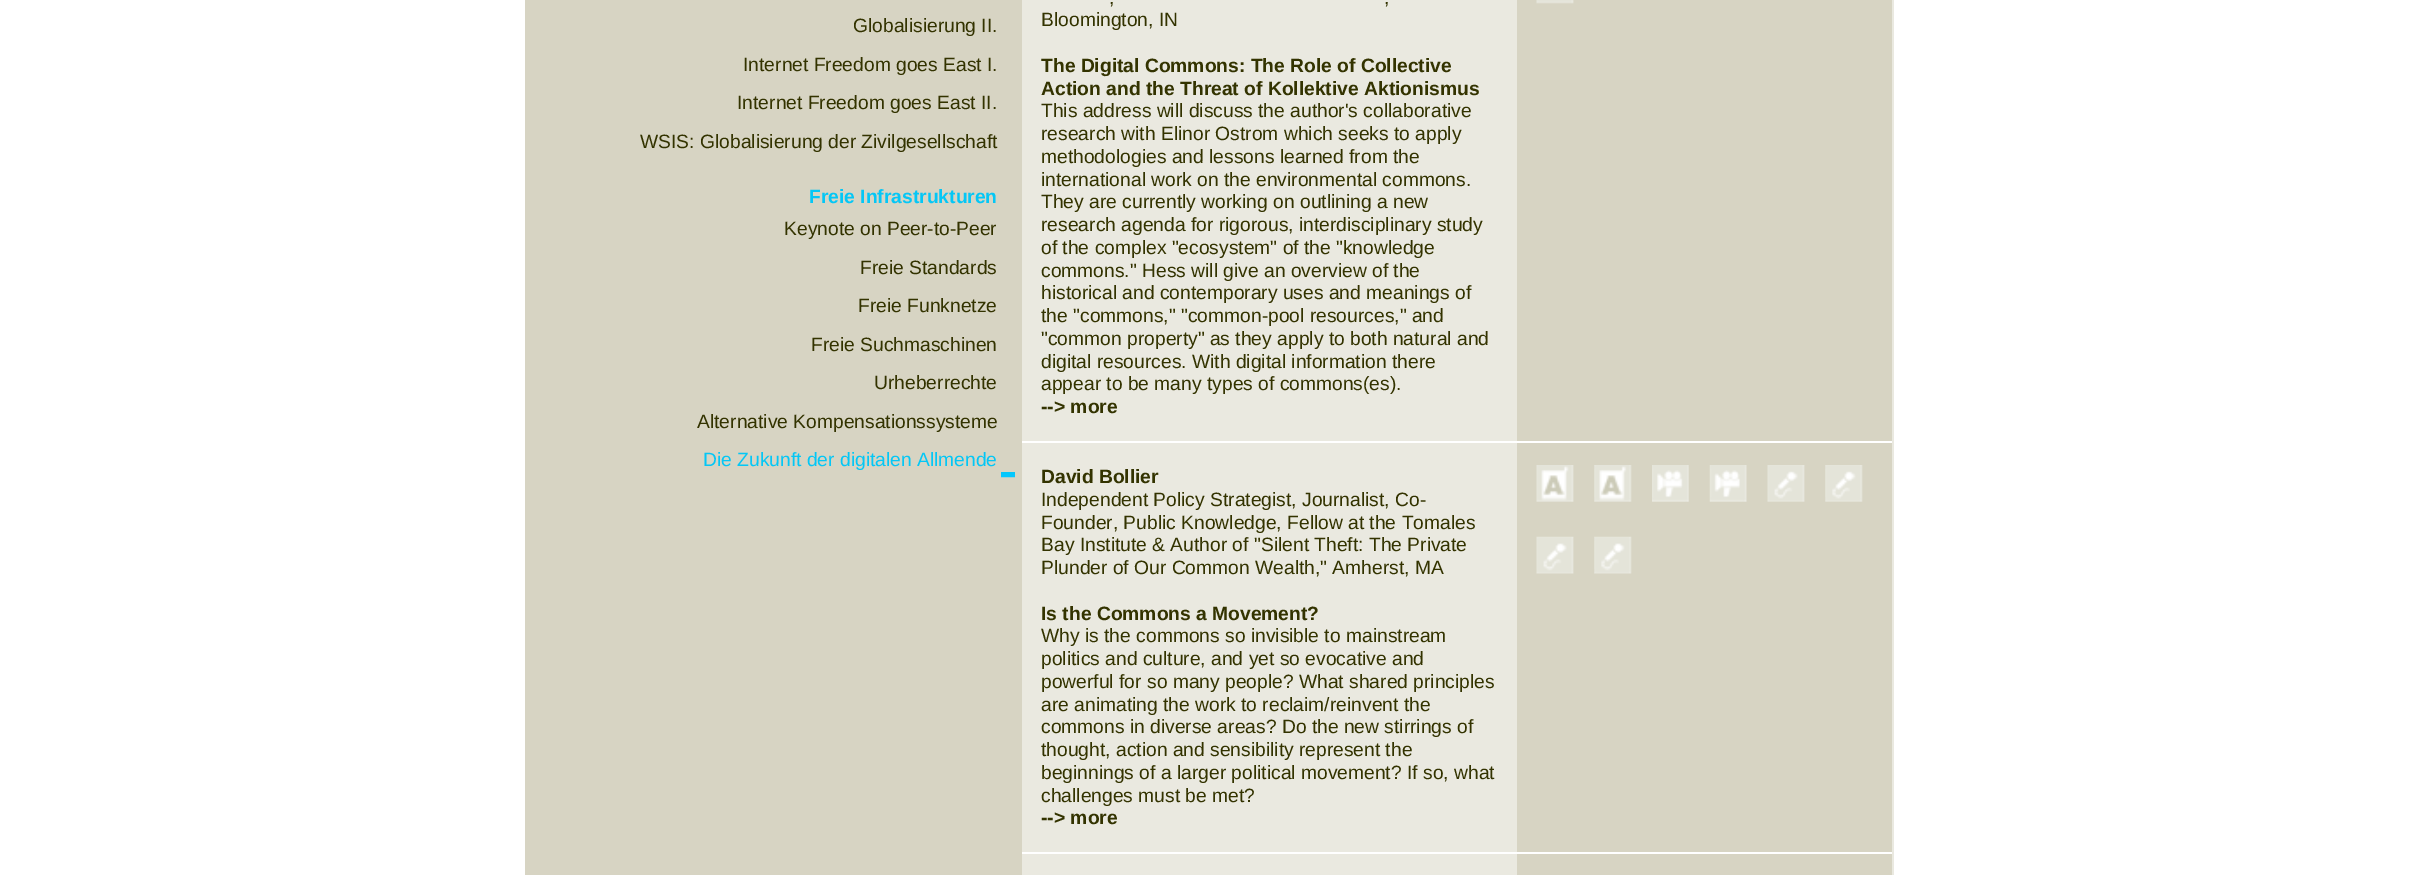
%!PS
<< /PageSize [2418 875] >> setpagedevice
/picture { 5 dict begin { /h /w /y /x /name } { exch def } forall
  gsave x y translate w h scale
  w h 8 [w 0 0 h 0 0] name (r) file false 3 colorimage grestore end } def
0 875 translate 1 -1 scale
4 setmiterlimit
1 setgray
0 0 2418 875 rectfill
0.843 0.831 0.765 setrgbcolor
525 0 497 875 rectfill
/LiberationSans-Regular [19.25 0 0 -19.25 0 0] selectfont
0.2 0.2 0 setrgbcolor
853 32 moveto (Globalisierung II.) show
743 71 moveto (Internet Freedom goes East I.) show
737 109 moveto (Internet Freedom goes East II.) show
640 148 moveto (WSIS: Globalisierung der Zivilgesellschaft) show
/LiberationSans-Bold [19.25 0 0 -19.25 0 0] selectfont
0.016 0.78 0.965 setrgbcolor
809 203 moveto (Freie Infrastrukturen) show
/LiberationSans-Regular [19.25 0 0 -19.25 0 0] selectfont
0.2 0.2 0 setrgbcolor
784 235 moveto (Keynote on Peer-to-Peer) show
860 274 moveto (Freie Standards) show
858 312 moveto (Freie Funknetze) show
811 351 moveto (Freie Suchmaschinen) show
874 389 moveto (Urheberrechte) show
697 428 moveto (Alternative Kompensationssysteme) show
0.016 0.78 0.965 setrgbcolor
703 466 moveto (Die Zukunft der digitalen Allmende) show
(img1.rgb) 1001 472 14 6 picture
0.918 0.914 0.878 setrgbcolor
1022 0 872 875 rectfill
0.843 0.831 0.765 setrgbcolor
1517 0 375 441 rectfill
0.2 0.2 0 setrgbcolor
1109 4 moveto (,) show
1384 4 moveto (,) show
1041 26 moveto (Bloomington, IN) show
/LiberationSans-Bold [19.25 0 0 -19.25 0 0] selectfont
1041 72 moveto (The Digital Commons: The Role of Collective) show
1041 95 moveto (Action and the Threat of Kollektive Aktionismus) show
/LiberationSans-Regular [19.25 0 0 -19.25 0 0] selectfont
1041 117 moveto (This address will discuss the author's collaborative) show
1041 140 moveto (research with Elinor Ostrom which seeks to apply) show
1041 163 moveto (methodologies and lessons learned from the) show
1041 186 moveto (international work on the environmental commons.) show
1041 208 moveto (They are currently working on outlining a new) show
1041 231 moveto (research agenda for rigorous, interdisciplinary study) show
1041 254 moveto (of the complex "ecosystem" of the "knowledge) show
1041 277 moveto (commons." Hess will give an overview of the) show
1041 299 moveto (historical and contemporary uses and meanings of) show
1041 322 moveto (the "commons," "common-pool resources," and) show
1041 345 moveto ("common property" as they apply to both natural and) show
1041 368 moveto (digital resources. With digital information there) show
1041 390 moveto (appear to be many types of commons\(es\).) show
/LiberationSans-Bold [19.25 0 0 -19.25 0 0] selectfont
1041 413 moveto (--> more) show
(img2.rgb) 1536 0 38 4 picture
1 setgray
1022 441 870 2 rectfill
0.843 0.831 0.765 setrgbcolor
1517 443 375 409 rectfill
0.2 0.2 0 setrgbcolor
1041 483 moveto (David Bollier) show
/LiberationSans-Regular [19.25 0 0 -19.25 0 0] selectfont
1041 506 moveto (Independent Policy Strategist, Journalist, Co-) show
1041 529 moveto (Founder, Public Knowledge, Fellow at the Tomales) show
1041 551 moveto (Bay Institute & Author of "Silent Theft: The Private) show
1041 574 moveto (Plunder of Our Common Wealth," Amherst, MA) show
/LiberationSans-Bold [19.25 0 0 -19.25 0 0] selectfont
1041 620 moveto (Is the Commons a Movement?) show
/LiberationSans-Regular [19.25 0 0 -19.25 0 0] selectfont
1041 642 moveto (Why is the commons so invisible to mainstream) show
1041 665 moveto (politics and culture, and yet so evocative and) show
1041 688 moveto (powerful for so many people? What shared principles) show
1041 711 moveto (are animating the work to reclaim/reinvent the) show
1041 733 moveto (commons in diverse areas? Do the new stirrings of) show
1041 756 moveto (thought, action and sensibility represent the) show
1041 779 moveto (beginnings of a larger political movement? If so, what) show
1041 802 moveto (challenges must be met?) show
/LiberationSans-Bold [19.25 0 0 -19.25 0 0] selectfont
1041 824 moveto (--> more) show
(img3.rgb) 1536 465 38 37 picture
(img4.rgb) 1594 465 38 37 picture
(img5.rgb) 1652 465 37 37 picture
(img6.rgb) 1709 465 38 37 picture
(img7.rgb) 1767 465 38 37 picture
(img8.rgb) 1825 465 38 37 picture
(img9.rgb) 1536 536 38 38 picture
(img10.rgb) 1594 536 38 38 picture
1 setgray
1022 852 870 2 rectfill
0.843 0.831 0.765 setrgbcolor
1517 854 375 21 rectfill
showpage
